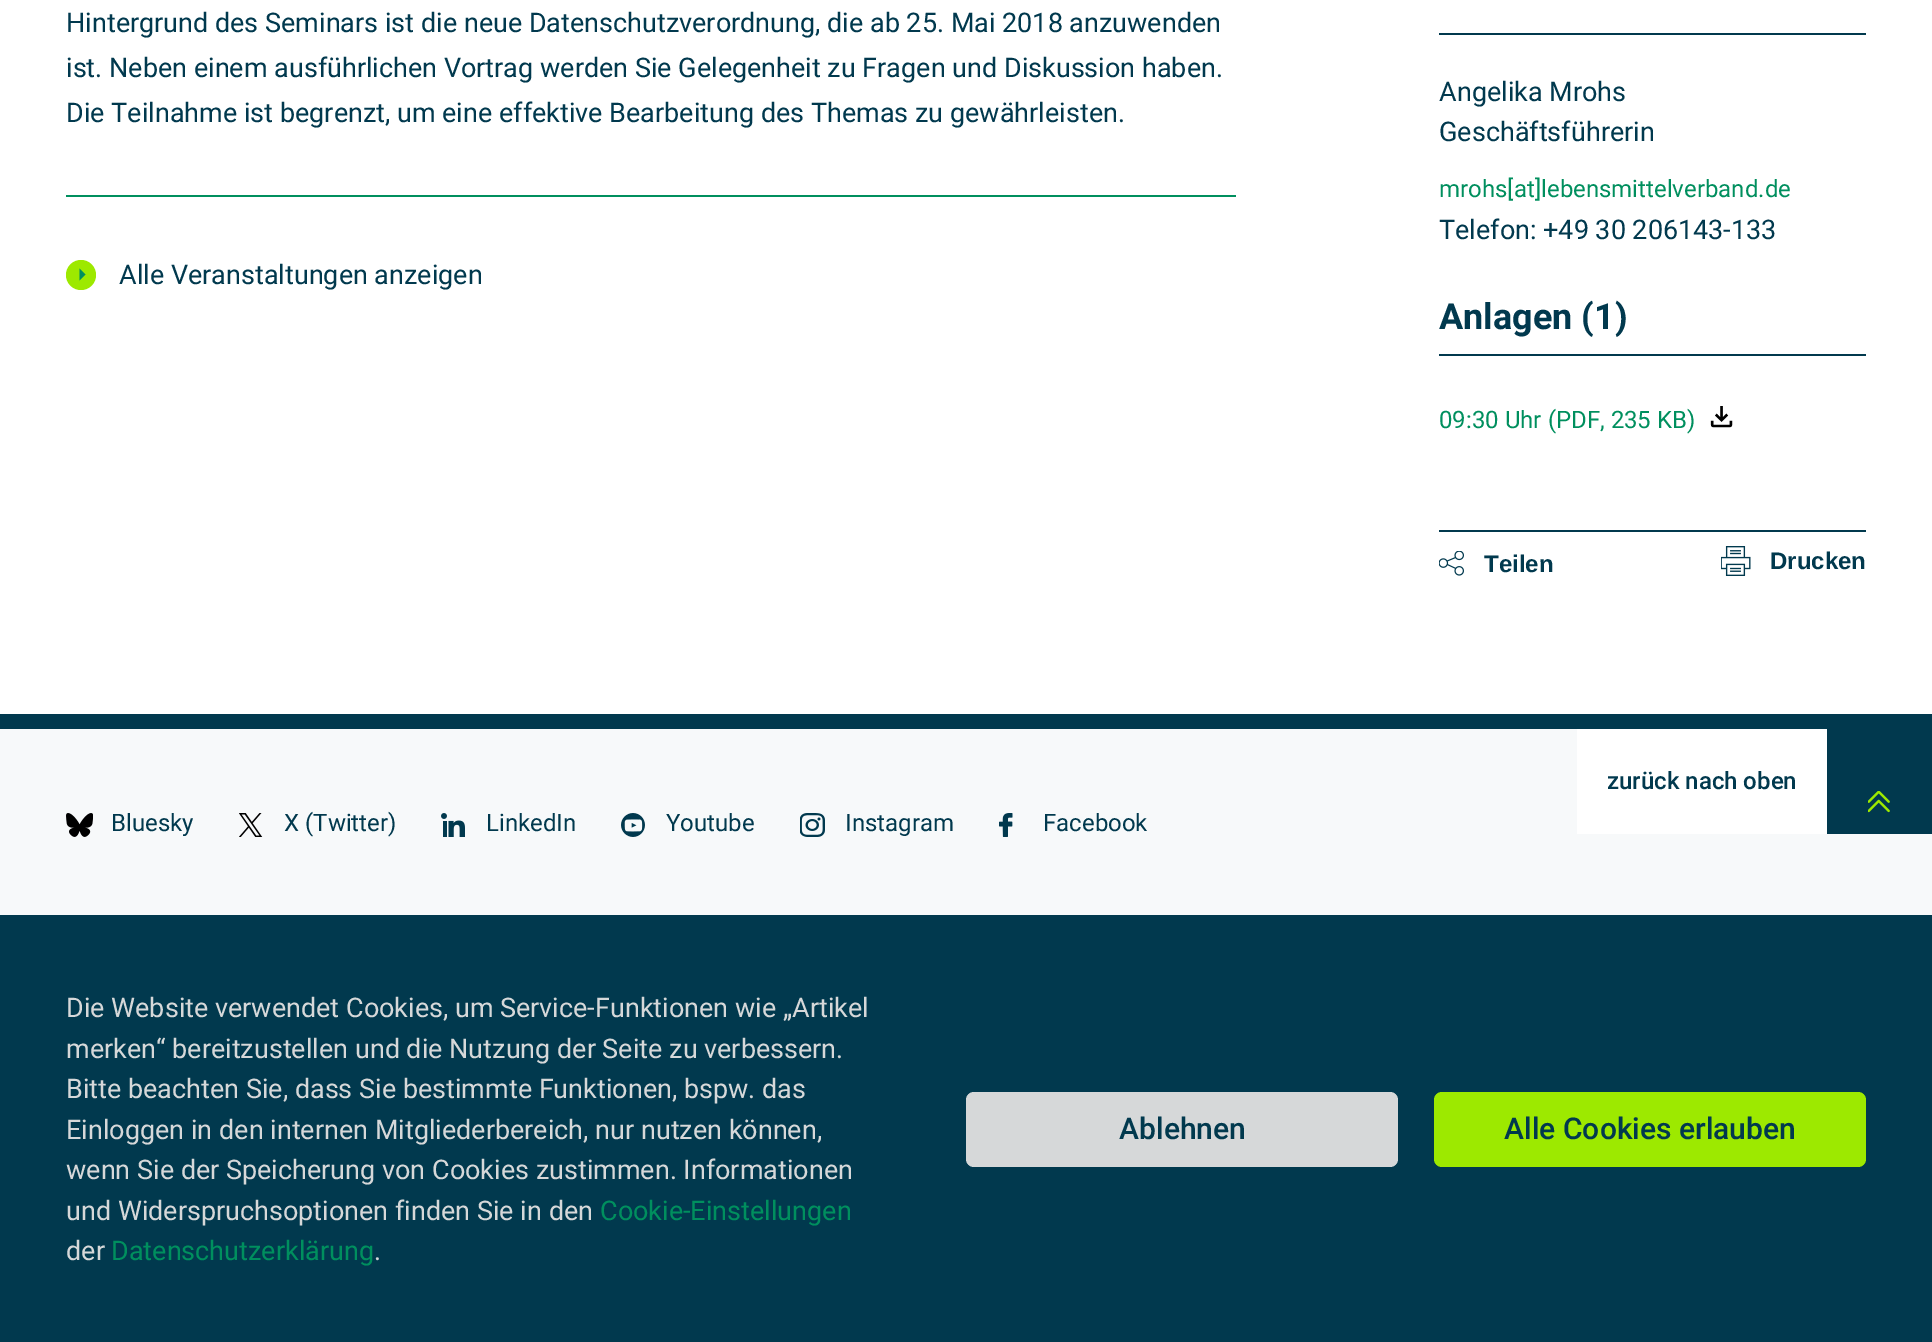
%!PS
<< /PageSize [1932 1342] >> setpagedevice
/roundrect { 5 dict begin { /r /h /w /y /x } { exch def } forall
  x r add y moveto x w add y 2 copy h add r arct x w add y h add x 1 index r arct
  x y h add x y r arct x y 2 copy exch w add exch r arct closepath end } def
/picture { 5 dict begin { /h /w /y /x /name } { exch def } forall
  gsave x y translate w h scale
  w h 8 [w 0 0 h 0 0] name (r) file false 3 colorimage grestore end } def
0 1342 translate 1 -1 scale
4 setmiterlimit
1 setgray
0 0 1932 1342 rectfill
/Roboto-Regular [27 0 0 -27 0 0] selectfont
0.004 0.224 0.306 setrgbcolor
66 32 moveto (Hintergrund des Seminars ist die neue Datenschutzverordnung, die ab 25. Mai 2018 anzuwenden) show
66 77 moveto (ist. Neben einem ausführlichen Vortrag werden Sie Gelegenheit zu Fragen und Diskussion haben.) show
66 122 moveto (Die Teilnahme ist begrenzt, um eine effektive Bearbeitung des Themas zu gewährleisten.) show
0 0.561 0.369 setrgbcolor
66 195 1170 2 rectfill
0.616 0.914 0 setrgbcolor
newpath 81 275 15 0 360 arc closepath fill
0.004 0.224 0.306 setrgbcolor
119 284 moveto (Alle Veranstaltungen anzeigen) show
0 0.561 0.369 setrgbcolor
newpath 79.5 280.5 moveto 79.5 268.5 lineto 85.5 274.5 lineto closepath fill
0.004 0.224 0.306 setrgbcolor
1439 33 427 2 rectfill
1439 101 moveto (Angelika Mrohs) show
1439 141 moveto (Geschäftsführerin) show
/Roboto-Regular [24 0 0 -24 0 0] selectfont
0 0.561 0.369 setrgbcolor
1439 197 moveto (mrohs[at]lebensmittelverband.de) show
/Roboto-Regular [27 0 0 -27 0 0] selectfont
0.004 0.224 0.306 setrgbcolor
1439 239 moveto (Telefon: +49 30 206143-133) show
1439 354 427 2 rectfill
/Roboto-Bold [36 0 0 -36 0 0] selectfont
1439 329 moveto (Anlagen \(1\)) show
/Roboto-Regular [24 0 0 -24 0 0] selectfont
0 0.561 0.369 setrgbcolor
1439 428 moveto (09:30 Uhr \(PDF, 235 KB\)) show
(img1.rgb) 1710 406 23 22 picture
0.004 0.224 0.306 setrgbcolor
1439 530 427 2 rectfill
(img2.rgb) 1439 551 25 25 picture
/LiberationSans-Bold [24 0 0 -24 0 0] selectfont
1484 572 moveto (Teilen) show
(img3.rgb) 1721 546 30 30 picture
1770 569 moveto (Drucken) show
0.969 0.976 0.98 setrgbcolor
0 729 1932 186 rectfill
0.004 0.224 0.306 setrgbcolor
0 714 1932 15 rectfill
1 setgray
1577 729 250 105 rectfill
/Roboto-Medium [24 0 0 -24 0 0] selectfont
0.004 0.224 0.306 setrgbcolor
1607 789 moveto (zurück nach oben) show
1827 729 105 105 rectfill
(img4.rgb) 1868 791 22 22 picture
(img5.rgb) 66 813 27 24 picture
/Roboto-Regular [24 0 0 -24 0 0] selectfont
111 831 moveto (Bluesky) show
(img6.rgb) 239 813 24 24 picture
284 831 moveto (X \(Twitter\)) show
(img7.rgb) 441 813 24 24 picture
486 831 moveto (LinkedIn) show
(img8.rgb) 621 813 24 24 picture
666 831 moveto (Youtube) show
(img9.rgb) 800 813 25 24 picture
845 831 moveto (Instagram) show
(img10.rgb) 999 813 14 24 picture
1043 831 moveto (Facebook) show
0 915 1932 427 rectfill
/Roboto-Regular [27 0 0 -27 0 0] selectfont
0.839 0.847 0.851 setrgbcolor
66 1017 moveto (Die Website verwendet Cookies, um Service-Funktionen wie „Artikel) show
66 1058 moveto (merken“ bereitzustellen und die Nutzung der Seite zu verbessern.) show
66 1098 moveto (Bitte beachten Sie, dass Sie bestimmte Funktionen, bspw. das) show
66 1139 moveto (Einloggen in den internen Mitgliederbereich, nur nutzen können,) show
66 1179 moveto (wenn Sie der Speicherung von Cookies zustimmen. Informationen) show
66 1220 moveto (und Widerspruchsoptionen finden Sie in den) show
0 0.561 0.369 setrgbcolor
600 1220 moveto (Cookie-Einstellungen) show
0.839 0.847 0.851 setrgbcolor
66 1260 moveto (der) show
0 0.561 0.369 setrgbcolor
111 1260 moveto (Datenschutzerklärung) show
0.839 0.847 0.851 setrgbcolor
374 1260 moveto (.) show
966 1092 432 75 8 roundrect fill
/Roboto-Medium [30 0 0 -30 0 0] selectfont
0.004 0.224 0.306 setrgbcolor
1119 1139 moveto (Ablehnen) show
0.616 0.914 0 setrgbcolor
1434 1092 432 75 8 roundrect fill
0.004 0.224 0.306 setrgbcolor
1504 1139 moveto (Alle Cookies erlauben) show
showpage
